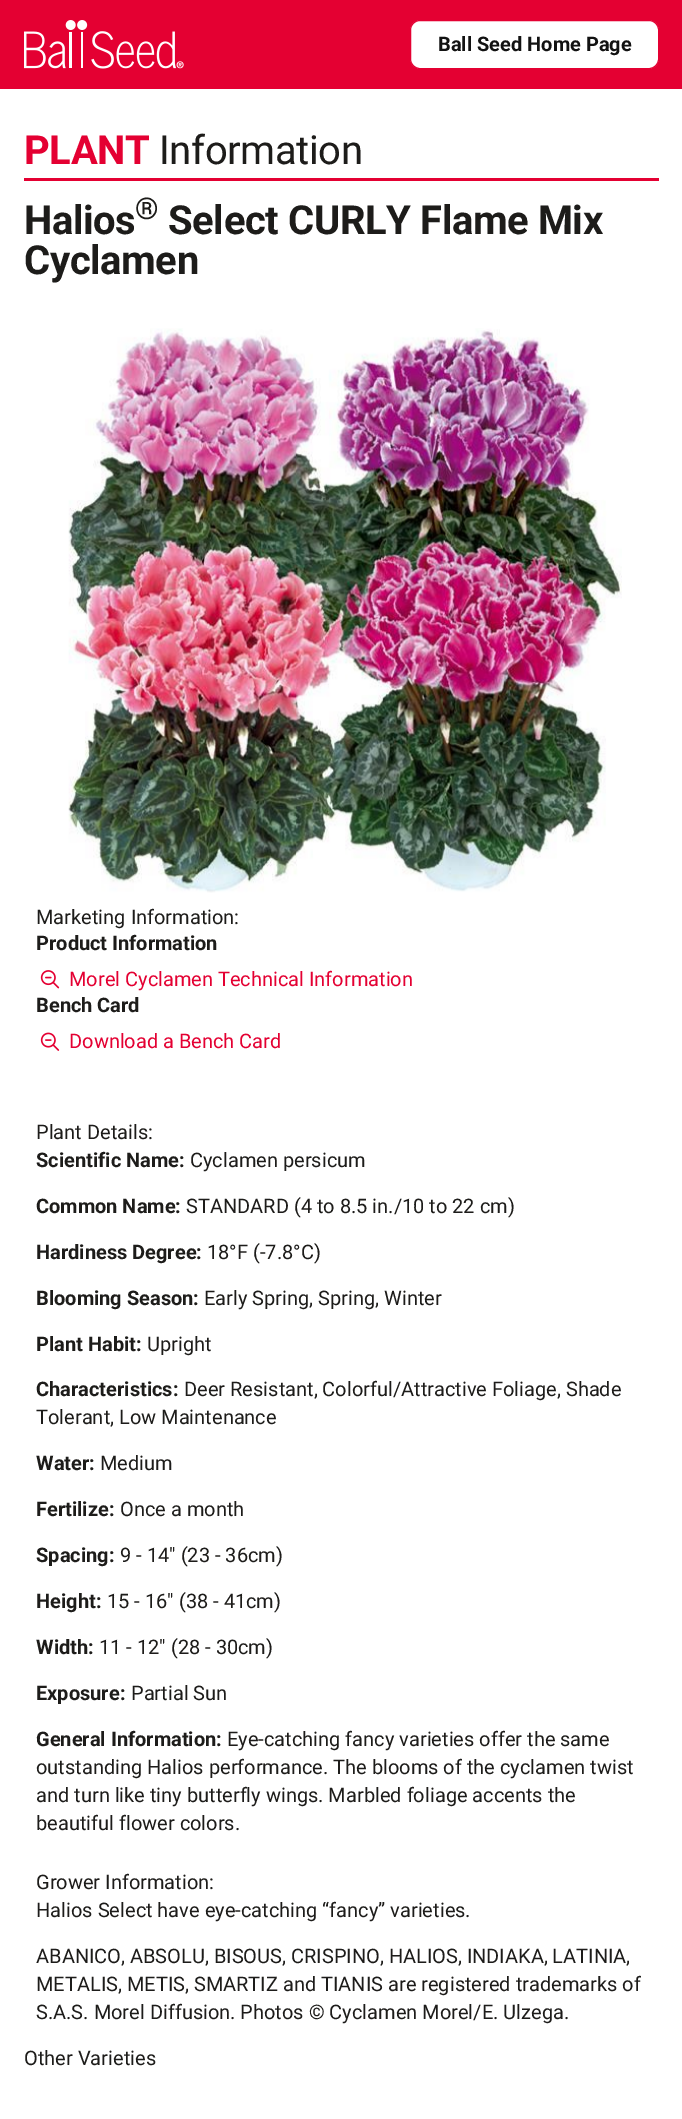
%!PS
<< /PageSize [682 2119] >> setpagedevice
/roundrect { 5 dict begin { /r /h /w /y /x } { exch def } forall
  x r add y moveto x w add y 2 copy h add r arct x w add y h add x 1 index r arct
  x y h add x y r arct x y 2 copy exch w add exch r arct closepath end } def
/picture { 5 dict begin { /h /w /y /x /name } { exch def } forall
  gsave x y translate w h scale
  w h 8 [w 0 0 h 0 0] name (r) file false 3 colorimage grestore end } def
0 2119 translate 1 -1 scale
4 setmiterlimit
1 setgray
0 0 682 2119 rectfill
0.894 0 0.196 setrgbcolor
0 0 682 89 rectfill
(img1.rgb) 24 20 160 49 picture
1 setgray
410.5 20.5 248 48 9.5 roundrect gsave fill grestore
0.894 0 0.196 setrgbcolor
stroke
/Roboto-Bold [20 0 0 -20 0 0] selectfont
0.071 setgray
438 51 moveto (Ball Seed Home Page) show
0.894 0 0.196 setrgbcolor
24 178 635 3 rectfill
/Roboto-Bold [40 0 0 -40 0 0] selectfont
24 164 moveto -0.4 0 (PLANT) ashow
/Roboto-Regular [40 0 0 -40 0 0] selectfont
0.114 0.11 0.102 setrgbcolor
159 164 moveto -0.4 0 (Information) ashow
/Roboto-Bold [40 0 0 -40 0 0] selectfont
24 234 moveto -0.4 0 (Halios) ashow
/Roboto-Bold [30 0 0 -30 0 0] selectfont
135 219 moveto -0.4 0 (®) ashow
/Roboto-Bold [40 0 0 -40 0 0] selectfont
168 234 moveto -0.4 0 (Select CURLY Flame Mix) ashow
24 274 moveto -0.4 0 (Cyclamen) ashow
(img2.rgb) 68 328 554 565 picture
/Roboto-Regular [20 0 0 -20 0 0] selectfont
36 924 moveto (Marketing Information:) show
/Roboto-Bold [20 0 0 -20 0 0] selectfont
36 950 moveto (Product Information) show
(img3.rgb) 40 970 20 19 picture
/Roboto-Regular [20 0 0 -20 0 0] selectfont
0.894 0 0.196 setrgbcolor
69 986 moveto (Morel Cyclamen Technical Information) show
/Roboto-Bold [20 0 0 -20 0 0] selectfont
0.114 0.11 0.102 setrgbcolor
36 1012 moveto (Bench Card) show
(img4.rgb) 40 1032 20 19 picture
/Roboto-Regular [20 0 0 -20 0 0] selectfont
0.894 0 0.196 setrgbcolor
69 1048 moveto (Download a Bench Card) show
0.114 0.11 0.102 setrgbcolor
36 1139 moveto (Plant Details:) show
/Roboto-Bold [20 0 0 -20 0 0] selectfont
36 1167 moveto (Scientific Name:) show
/Roboto-Regular [20 0 0 -20 0 0] selectfont
190 1167 moveto (Cyclamen persicum) show
/Roboto-Bold [20 0 0 -20 0 0] selectfont
36 1213 moveto (Common Name:) show
/Roboto-Regular [20 0 0 -20 0 0] selectfont
186 1213 moveto (STANDARD \(4 to 8.5 in./10 to 22 cm\)) show
/Roboto-Bold [20 0 0 -20 0 0] selectfont
36 1259 moveto (Hardiness Degree:) show
/Roboto-Regular [20 0 0 -20 0 0] selectfont
207 1259 moveto (18°F \(-7.8°C\)) show
/Roboto-Bold [20 0 0 -20 0 0] selectfont
36 1305 moveto (Blooming Season:) show
/Roboto-Regular [20 0 0 -20 0 0] selectfont
204 1305 moveto (Early Spring, Spring, Winter) show
/Roboto-Bold [20 0 0 -20 0 0] selectfont
36 1351 moveto (Plant Habit:) show
/Roboto-Regular [20 0 0 -20 0 0] selectfont
147 1351 moveto (Upright) show
/Roboto-Bold [20 0 0 -20 0 0] selectfont
36 1396 moveto (Characteristics:) show
/Roboto-Regular [20 0 0 -20 0 0] selectfont
184 1396 moveto (Deer Resistant, Colorful/Attractive Foliage, Shade) show
36 1424 moveto (Tolerant, Low Maintenance) show
/Roboto-Bold [20 0 0 -20 0 0] selectfont
36 1470 moveto (Water:) show
/Roboto-Regular [20 0 0 -20 0 0] selectfont
100 1470 moveto (Medium) show
/Roboto-Bold [20 0 0 -20 0 0] selectfont
36 1516 moveto (Fertilize:) show
/Roboto-Regular [20 0 0 -20 0 0] selectfont
120 1516 moveto (Once a month) show
/Roboto-Bold [20 0 0 -20 0 0] selectfont
36 1562 moveto (Spacing:) show
/Roboto-Regular [20 0 0 -20 0 0] selectfont
120 1562 moveto (9 - 14" \(23 - 36cm\)) show
/Roboto-Bold [20 0 0 -20 0 0] selectfont
36 1608 moveto (Height:) show
/Roboto-Regular [20 0 0 -20 0 0] selectfont
107 1608 moveto (15 - 16" \(38 - 41cm\)) show
/Roboto-Bold [20 0 0 -20 0 0] selectfont
36 1654 moveto (Width:) show
/Roboto-Regular [20 0 0 -20 0 0] selectfont
99 1654 moveto (11 - 12" \(28 - 30cm\)) show
/Roboto-Bold [20 0 0 -20 0 0] selectfont
36 1700 moveto (Exposure:) show
/Roboto-Regular [20 0 0 -20 0 0] selectfont
131 1700 moveto (Partial Sun) show
/Roboto-Bold [20 0 0 -20 0 0] selectfont
36 1746 moveto (General Information:) show
/Roboto-Regular [20 0 0 -20 0 0] selectfont
227 1746 moveto (Eye-catching fancy varieties offer the same) show
36 1774 moveto (outstanding Halios performance. The blooms of the cyclamen twist) show
36 1802 moveto (and turn like tiny butterfly wings. Marbled foliage accents the) show
36 1830 moveto (beautiful flower colors.) show
36 1889 moveto (Grower Information:) show
36 1917 moveto (Halios Select have eye-catching “fancy” varieties.) show
36 1963 moveto (ABANICO, ABSOLU, BISOUS, CRISPINO, HALIOS, INDIAKA, LATINIA,) show
36 1991 moveto (METALIS, METIS, SMARTIZ and TIANIS are registered trademarks of) show
36 2019 moveto (S.A.S. Morel Diffusion. Photos © Cyclamen Morel/E. Ulzega.) show
24 2065 moveto (Other Varieties) show
showpage
